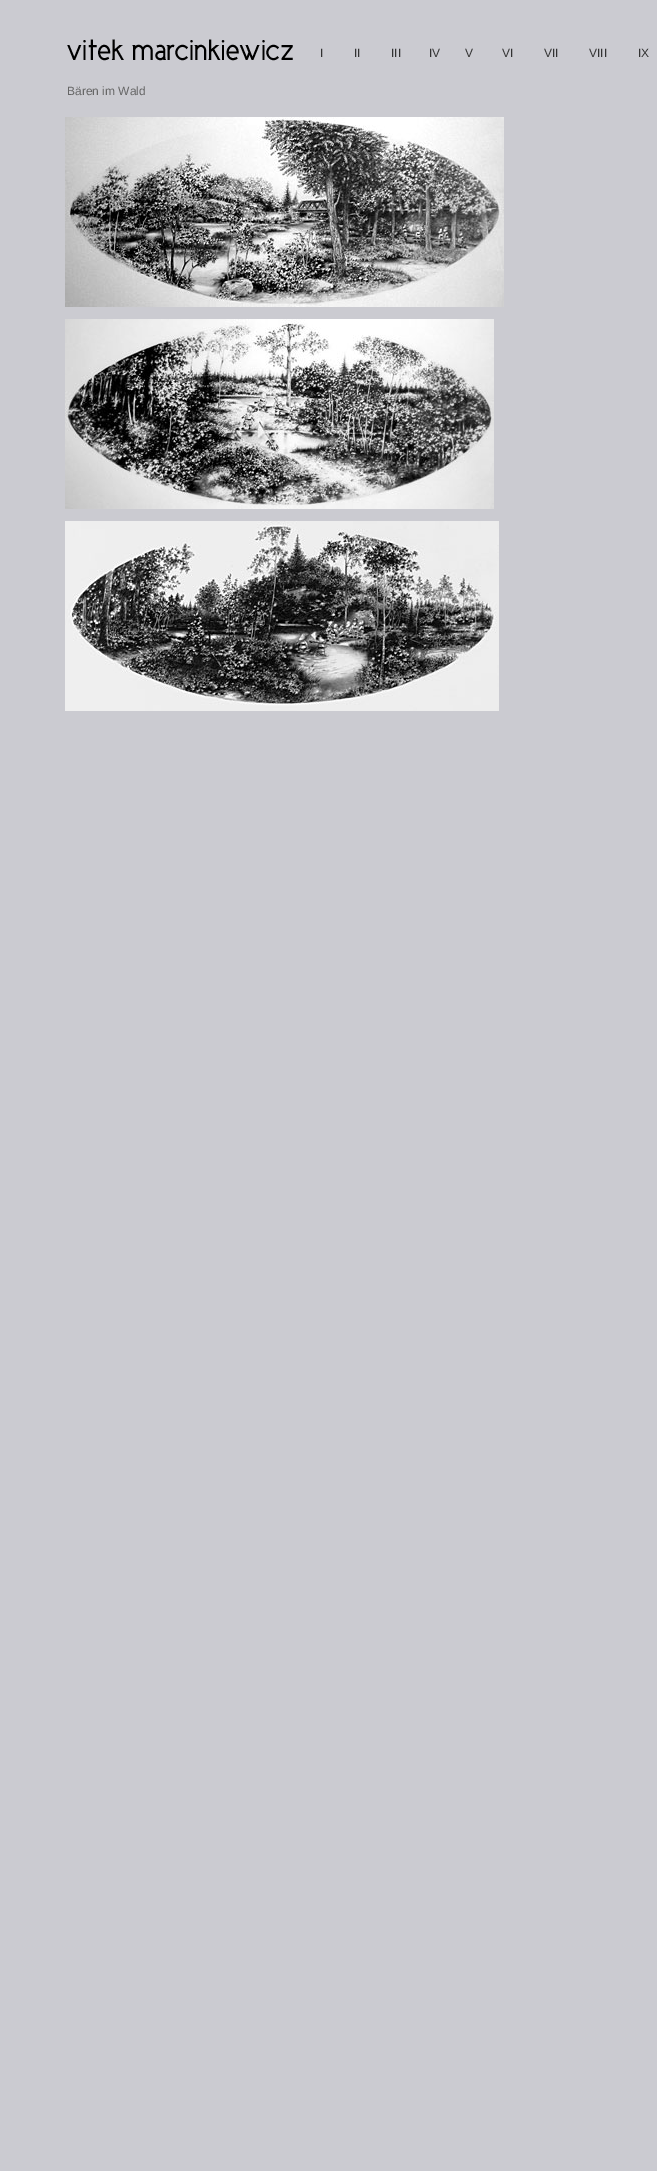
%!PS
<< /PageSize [657 2171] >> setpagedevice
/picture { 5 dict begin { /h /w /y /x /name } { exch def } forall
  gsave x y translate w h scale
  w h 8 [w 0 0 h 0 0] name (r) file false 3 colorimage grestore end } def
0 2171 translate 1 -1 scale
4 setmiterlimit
0.796 0.796 0.82 setrgbcolor
0 0 657 2171 rectfill
(img1.rgb) 67 39 226 22 picture
/LiberationSans-Regular [12 0 0 -12 0 0] selectfont
0.2 setgray
320 57 moveto (I) show
354 57 moveto (II) show
391 57 moveto (III) show
429 57 moveto (IV) show
465 57 moveto (V) show
502 57 moveto (VI) show
544 57 moveto (VII) show
589 57 moveto (VIII) show
638 57 moveto (IX) show
0.4 setgray
67 95 moveto (Bären im Wald) show
(img2.rgb) 65 117 439 190 picture
(img3.rgb) 65 319 429 190 picture
(img4.rgb) 65 521 434 190 picture
showpage
